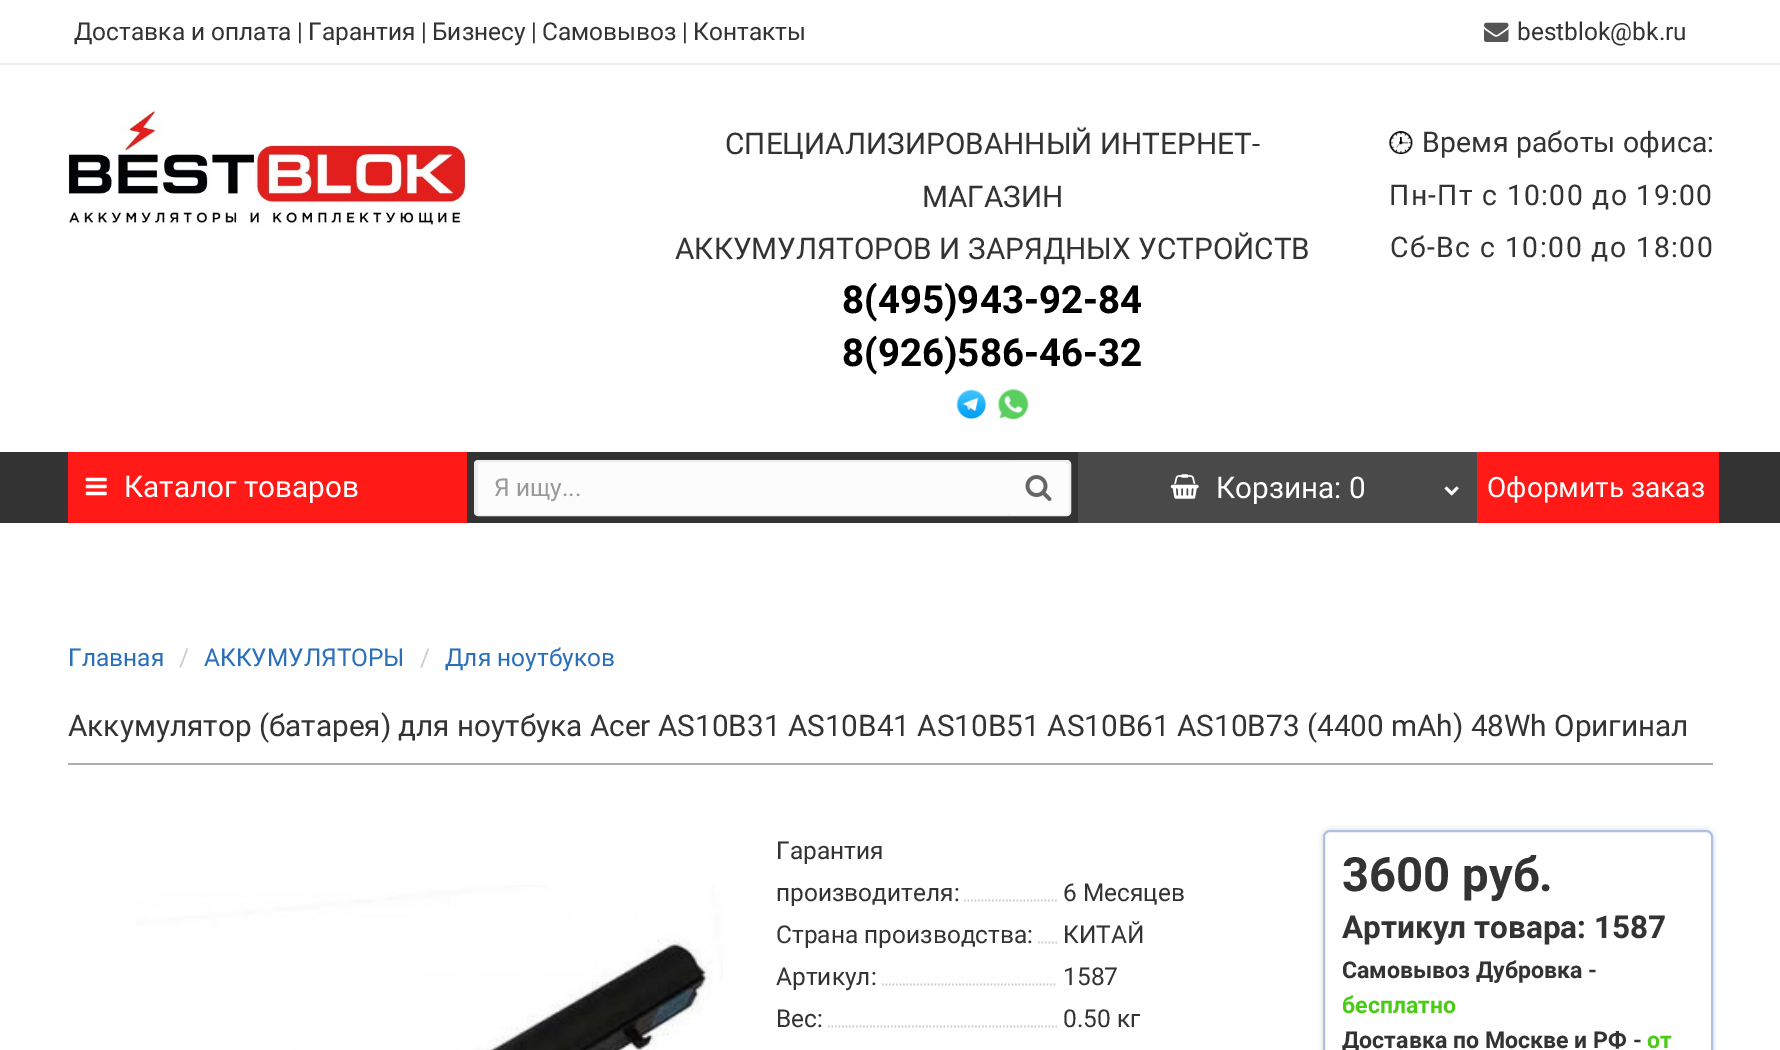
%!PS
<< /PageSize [1780 1050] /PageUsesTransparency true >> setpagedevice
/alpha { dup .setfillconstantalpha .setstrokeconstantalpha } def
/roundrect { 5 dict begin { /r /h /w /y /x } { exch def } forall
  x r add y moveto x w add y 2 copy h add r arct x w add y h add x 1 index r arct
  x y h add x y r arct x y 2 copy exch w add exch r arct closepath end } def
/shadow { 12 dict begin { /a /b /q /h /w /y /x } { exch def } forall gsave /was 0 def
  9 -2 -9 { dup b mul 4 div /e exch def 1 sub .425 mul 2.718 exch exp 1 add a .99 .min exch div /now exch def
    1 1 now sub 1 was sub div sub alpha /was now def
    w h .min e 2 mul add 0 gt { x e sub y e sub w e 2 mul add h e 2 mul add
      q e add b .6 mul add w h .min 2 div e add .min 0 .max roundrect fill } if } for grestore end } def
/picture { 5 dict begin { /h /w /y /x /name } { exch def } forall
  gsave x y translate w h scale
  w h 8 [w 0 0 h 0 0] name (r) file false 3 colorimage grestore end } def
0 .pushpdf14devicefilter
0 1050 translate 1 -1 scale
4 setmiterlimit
1 setgray
0 0 1780 1050 rectfill
0.929 setgray
0 63 1780 2 rectfill
/Roboto-Regular [24.5 0 0 -24.5 0 0] selectfont
0.2 setgray
74 40 moveto (Доставка и оплата) show
297 40 moveto (|) show
308 40 moveto (Гарантия) show
421 40 moveto (|) show
432 40 moveto (Бизнесу) show
531 40 moveto (|) show
542 40 moveto (Самовывоз) show
682 40 moveto (|) show
693 40 moveto (Контакты) show
(img1.rgb) 1484 22 25 20 picture
1517 40 moveto (bestblok@bk.ru) show
(img2.rgb) 68 110 398 116 picture
/Roboto-Regular [29.75 0 0 -29.75 0 0] selectfont
725 154 moveto (СПЕЦИАЛИЗИРОВАННЫЙ ИНТЕРНЕТ-) show
922 207 moveto (МАГАЗИН) show
675 259 moveto (АККУМУЛЯТОРОВ И ЗАРЯДНЫХ УСТРОЙСТВ) show
/Roboto-Bold [38.5 0 0 -38.5 0 0] selectfont
0 setgray
842 313 moveto (8\(495\)943-92-84) show
842 366 moveto (8\(926\)586-46-32) show
(img3.rgb) 956 389 31 31 picture
(img4.rgb) 997 388 32 32 picture
(img5.rgb) 1389 131 24 24 picture
/Roboto-Regular [28.4 0 0 -28.4 0 0] selectfont
0.2 setgray
1422 152 moveto 0.2 0 (Время работы офиса:) ashow
1389 205 moveto 1.3 0 (Пн-Пт с 10:00 до 19:00) ashow
1390 257 moveto 1.45 0 (Сб-Вс с 10:00 до 18:00) ashow
0 452 1780 71 rectfill
1 0.102 0.09 setrgbcolor
68 452 399 71 rectfill
(img6.rgb) 85 477 22 19 picture
/Roboto-Regular [29.75 0 0 -29.75 0 0] selectfont
1 setgray
124 497 moveto (Каталог товаров) show
0.988 setgray
475 461 595 54 3 roundrect gsave fill grestore
0.929 setgray
2 setlinewidth
stroke
0.988 setgray
478 514 530 1 rectfill
0.929 setgray
476 462 2 53 rectfill
/Roboto-Regular [24.5 0 0 -24.5 0 0] selectfont
0.6 setgray
494 496 moveto (Я ищу...) show
0.988 setgray
1008 462 61 53 4 roundrect fill
(img7.rgb) 1025 475 27 26 picture
0.286 setgray
1078 452 399 71 rectfill
(img8.rgb) 1170 474 29 25 picture
/Roboto-Regular [29.75 0 0 -29.75 0 0] selectfont
1 setgray
1216 498 moveto (Корзина: 0) show
(img9.rgb) 1444 486 15 10 picture
1 0.102 0.09 setrgbcolor
1477 452 242 71 rectfill
/Roboto-Regular [28 0 0 -28 0 0] selectfont
1 setgray
1487 497 moveto (Оформить заказ) show
/Roboto-Regular [24.5 0 0 -24.5 0 0] selectfont
0.165 0.435 0.729 setrgbcolor
68 666 moveto (Главная) show
0.8 setgray
179 666 moveto (/) show
0.165 0.435 0.729 setrgbcolor
204 666 moveto (АККУМУЛЯТОРЫ) show
0.8 setgray
420 666 moveto (/) show
0.165 0.435 0.729 setrgbcolor
445 666 moveto (Для ноутбуков) show
0.678 setgray
68 763 1645 2 rectfill
/Roboto-Regular [29.75 0 0 -29.75 0 0] selectfont
0.2 setgray
68 736 moveto (Аккумулятор \(батарея\) для ноутбука Acer AS10B31 AS10B41 AS10B51 AS10B61 AS10B73 \(4400 mAh\) 48Wh Оригинал) show
(img10.rgb) 136 885 587 165 picture
/Roboto-Regular [24.5 0 0 -24.5 0 0] selectfont
776 859 moveto (Гарантия) show
776 901 moveto (производителя:) show
gsave
775 830 282 84 rectclip
0.8 setgray
1.8 setlinewidth
[1.75 1.75] 0 setdash
newpath 964 900.5 moveto 1246 900.5 lineto stroke
grestore
1063 901 moveto (6 Месяцев) show
776 943 moveto (Страна производства:) show
gsave
775 914 282 42 rectclip
0.8 setgray
1.8 setlinewidth
[1.75 1.75] 0 setdash
newpath 1038 942.5 moveto 1321 942.5 lineto stroke
grestore
1063 943 moveto (КИТАЙ) show
776 985 moveto (Артикул:) show
gsave
775 956 282 42 rectclip
0.8 setgray
1.8 setlinewidth
[1.75 1.75] 0 setdash
newpath 882 984.5 moveto 1164 984.5 lineto stroke
grestore
1063 985 moveto (1587) show
776 1027 moveto (Вес:) show
gsave
775 998 282 42 rectclip
0.8 setgray
1.8 setlinewidth
[1.75 1.75] 0 setdash
newpath 828 1026.5 moveto 1109.5 1026.5 lineto stroke
grestore
1063 1027 moveto (0.50 кг) show
gsave
newpath 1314 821 moveto 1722 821 lineto 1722 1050 lineto 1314 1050 lineto closepath 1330 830 moveto 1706 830 lineto 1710 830 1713 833 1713 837 curveto 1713 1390 lineto 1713 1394 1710 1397 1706 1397 curveto 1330 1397 lineto 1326 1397 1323 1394 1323 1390 curveto 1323 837 lineto 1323 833 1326 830 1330 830 curveto closepath eoclip newpath
0.133 0.235 0.314 setrgbcolor
1323 830 390 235 7 2.5 0.2 shadow
grestore
0.694 0.753 0.882 setrgbcolor
1324 831 388 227 6 roundrect stroke
/Roboto-Bold [47.25 0 0 -47.25 0 0] selectfont
0.2 setgray
1342 891 moveto (3600 руб.) show
/Roboto-Bold [31.5 0 0 -31.5 0 0] selectfont
1342 938 moveto (Артикул товара: 1587) show
/Roboto-Bold [23.1 0 0 -23.1 0 0] selectfont
1342 978 moveto (Самовывоз Дубровка -) show
0.298 0.792 0.094 setrgbcolor
1342 1013 moveto (бесплатно) show
0.2 setgray
1342 1048 moveto (Доставка по Москве и РФ -) show
0.298 0.792 0.094 setrgbcolor
1647 1048 moveto (от) show
.poppdf14devicefilter showpage
